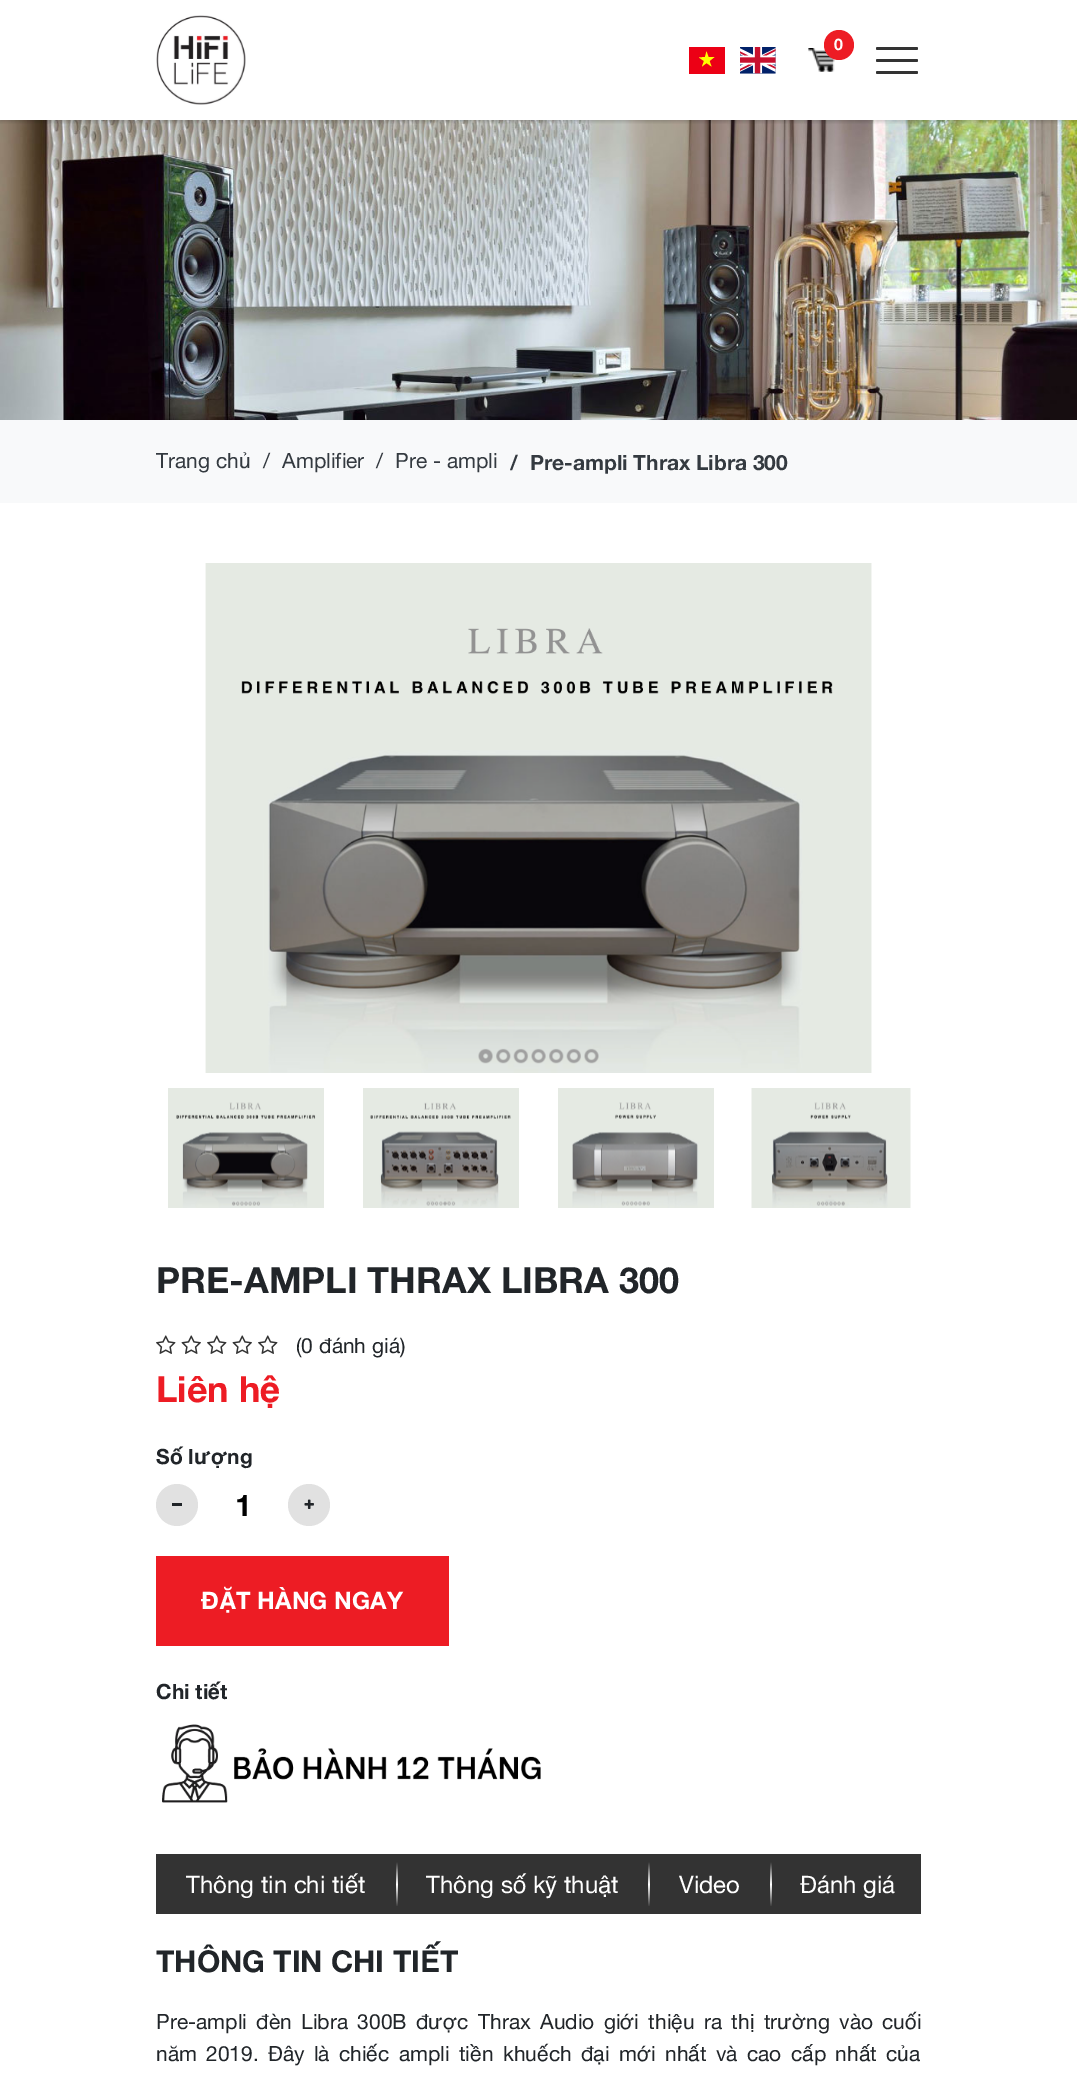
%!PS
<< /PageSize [1077 2084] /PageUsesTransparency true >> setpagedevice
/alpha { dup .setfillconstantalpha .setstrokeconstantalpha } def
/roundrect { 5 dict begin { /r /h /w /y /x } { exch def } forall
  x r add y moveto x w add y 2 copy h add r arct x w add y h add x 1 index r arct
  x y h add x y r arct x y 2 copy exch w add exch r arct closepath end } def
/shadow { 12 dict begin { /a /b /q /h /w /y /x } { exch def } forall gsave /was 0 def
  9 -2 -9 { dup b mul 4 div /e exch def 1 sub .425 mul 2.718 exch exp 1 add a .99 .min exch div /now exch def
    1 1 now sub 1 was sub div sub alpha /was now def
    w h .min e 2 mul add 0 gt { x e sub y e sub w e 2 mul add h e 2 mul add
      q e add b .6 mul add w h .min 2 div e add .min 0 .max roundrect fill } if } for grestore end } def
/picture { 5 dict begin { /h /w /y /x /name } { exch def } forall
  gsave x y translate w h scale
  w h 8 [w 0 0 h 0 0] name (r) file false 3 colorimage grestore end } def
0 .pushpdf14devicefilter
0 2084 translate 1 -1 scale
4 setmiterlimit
1 setgray
0 0 1077 2084 rectfill
(img4.rgb) 0 120 1077 300 picture
gsave
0 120 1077 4 rectclip
0 setgray
0 2 1077 120 0 1.5 0.15 shadow
grestore
(img1.rgb) 156 15 90 90 picture
(img2.rgb) 808 48 27 24 picture
0.929 0.11 0.141 setrgbcolor
newpath 839 45 15 0 360 arc closepath fill
/HelveticaNeue-Bold [16 0 0 -16 0 0] selectfont
1 setgray
834 50 moveto (0) show
0.925 0 0.082 setrgbcolor
689 47 36 27 rectfill
1 1 0 setrgbcolor
newpath 711.5 66.5 moveto 706.5 63 lineto 702 66.5 lineto 704 61 lineto 699 57.5 lineto 705 57 lineto 706.5 51.5 lineto 708.5 57 lineto 714.5 57 lineto 709.5 61 lineto closepath eofill
(img3.rgb) 740 47 36 27 picture
0.2 setgray
876 47 42 3 1.5 roundrect fill
876 59 42 3 1.5 roundrect fill
876 71 42 3 1.5 roundrect fill
0.973 0.976 0.98 setrgbcolor
0 420 1077 83 rectfill
/HelveticaNeue-Regular [21 0 0 -21 0 0] selectfont
0.204 0.227 0.251 setrgbcolor
156 468 moveto (Trang chủ) show
263 468 moveto (/) show
282 468 moveto (Amplifier) show
376 468 moveto (/) show
395 468 moveto (Pre - ampli) show
/HelveticaNeue-Bold [21 0 0 -21 0 0] selectfont
510 470 moveto (/) show
530 470 moveto (Pre-ampli Thrax Libra 300) show
(img5.rgb) 205 563 667 510 picture
(img6.rgb) 168 1088 156 120 picture
(img7.rgb) 363 1088 156 120 picture
(img8.rgb) 558 1088 156 120 picture
(img9.rgb) 751 1088 160 120 picture
/HelveticaNeue-Bold [36 0 0 -36 0 0] selectfont
0.129 0.145 0.161 setrgbcolor
156 1293 moveto (PRE-AMPLI THRAX LIBRA 300) show
(img10.rgb) 156 1335 122 19 picture
/HelveticaNeue-Regular [21 0 0 -21 0 0] selectfont
296 1353 moveto (\(0 đánh giá\)) show
/HelveticaNeue-Bold [36 0 0 -36 0 0] selectfont
0.929 0.11 0.141 setrgbcolor
156 1402 moveto (Liên hệ) show
/HelveticaNeue-Bold [21 0 0 -21 0 0] selectfont
0.129 0.145 0.161 setrgbcolor
156 1464 moveto (Số lượng) show
0.882 setgray
newpath 177 1505 21 0 360 arc closepath fill
0.129 0.145 0.161 setrgbcolor
172 1503 10 3 rectfill
/HelveticaNeue-Bold [30 0 0 -30 0 0] selectfont
0 setgray
235 1516 moveto (1) show
0.882 setgray
newpath 309 1505 21 0 360 arc closepath fill
(img11.rgb) 304 1499 10 10 picture
0.929 0.11 0.141 setrgbcolor
156 1556 293 90 rectfill
/HelveticaNeue-Bold [24 0 0 -24 0 0] selectfont
1 setgray
201 1609 moveto (ĐẶT HÀNG NGAY) show
/HelveticaNeue-Bold [21 0 0 -21 0 0] selectfont
0.129 0.145 0.161 setrgbcolor
156 1699 moveto (Chi tiết) show
(img12.rgb) 162 1724 379 79 picture
0.2 setgray
156 1854 765 60 rectfill
/HelveticaNeue-Regular [24 0 0 -24 0 0] selectfont
1 setgray
186 1893 moveto (Thông tin chi tiết) show
gsave newpath 396 1862 moveto 398 1862 lineto 398 1907 lineto 396 1907 lineto closepath clip newpath
<< /ShadingType 2 /ColorSpace /DeviceRGB /Coords [397 1862 397 1907] /Extend [true true] /Function << /FunctionType 3 /Domain [0 1] /Functions [<< /FunctionType 2 /Domain [0 1] /C0 [0.2 0.2 0.2] /C1 [1 1 1] /N 1 >> << /FunctionType 2 /Domain [0 1] /C0 [1 1 1] /C1 [0.2 0.2 0.2] /N 1 >>] /Bounds [0.5] /Encode [0 1 0 1] >> >> shfill grestore
426 1893 moveto (Thông số kỹ thuật) show
gsave newpath 648 1862 moveto 650 1862 lineto 650 1907 lineto 648 1907 lineto closepath clip newpath
<< /ShadingType 2 /ColorSpace /DeviceRGB /Coords [649 1862 649 1907] /Extend [true true] /Function << /FunctionType 3 /Domain [0 1] /Functions [<< /FunctionType 2 /Domain [0 1] /C0 [0.2 0.2 0.2] /C1 [1 1 1] /N 1 >> << /FunctionType 2 /Domain [0 1] /C0 [1 1 1] /C1 [0.2 0.2 0.2] /N 1 >>] /Bounds [0.5] /Encode [0 1 0 1] >> >> shfill grestore
679 1893 moveto (Video) show
gsave newpath 770 1862 moveto 772 1862 lineto 772 1907 lineto 770 1907 lineto closepath clip newpath
<< /ShadingType 2 /ColorSpace /DeviceRGB /Coords [770 1862 770 1907] /Extend [true true] /Function << /FunctionType 3 /Domain [0 1] /Functions [<< /FunctionType 2 /Domain [0 1] /C0 [0.2 0.2 0.2] /C1 [1 1 1] /N 1 >> << /FunctionType 2 /Domain [0 1] /C0 [1 1 1] /C1 [0.2 0.2 0.2] /N 1 >>] /Bounds [0.5] /Encode [0 1 0 1] >> >> shfill grestore
800 1893 moveto (Đánh giá) show
/HelveticaNeue-Bold [30 0 0 -30 0 0] selectfont
0.129 0.145 0.161 setrgbcolor
156 1972 moveto (THÔNG TIN CHI TIẾT) show
/HelveticaNeue-Regular [21 0 0 -21 0 0] selectfont
156 2029 moveto 3.4 0 32 (Pre-ampli đèn Libra 300B được Thrax Audio giới thiệu ra thị trường vào cuối) widthshow
156 2061 moveto 3.4 0 32 (năm 2019. Đây là chiếc ampli tiền khuếch đại mới nhất và cao cấp nhất của) widthshow
.poppdf14devicefilter showpage
